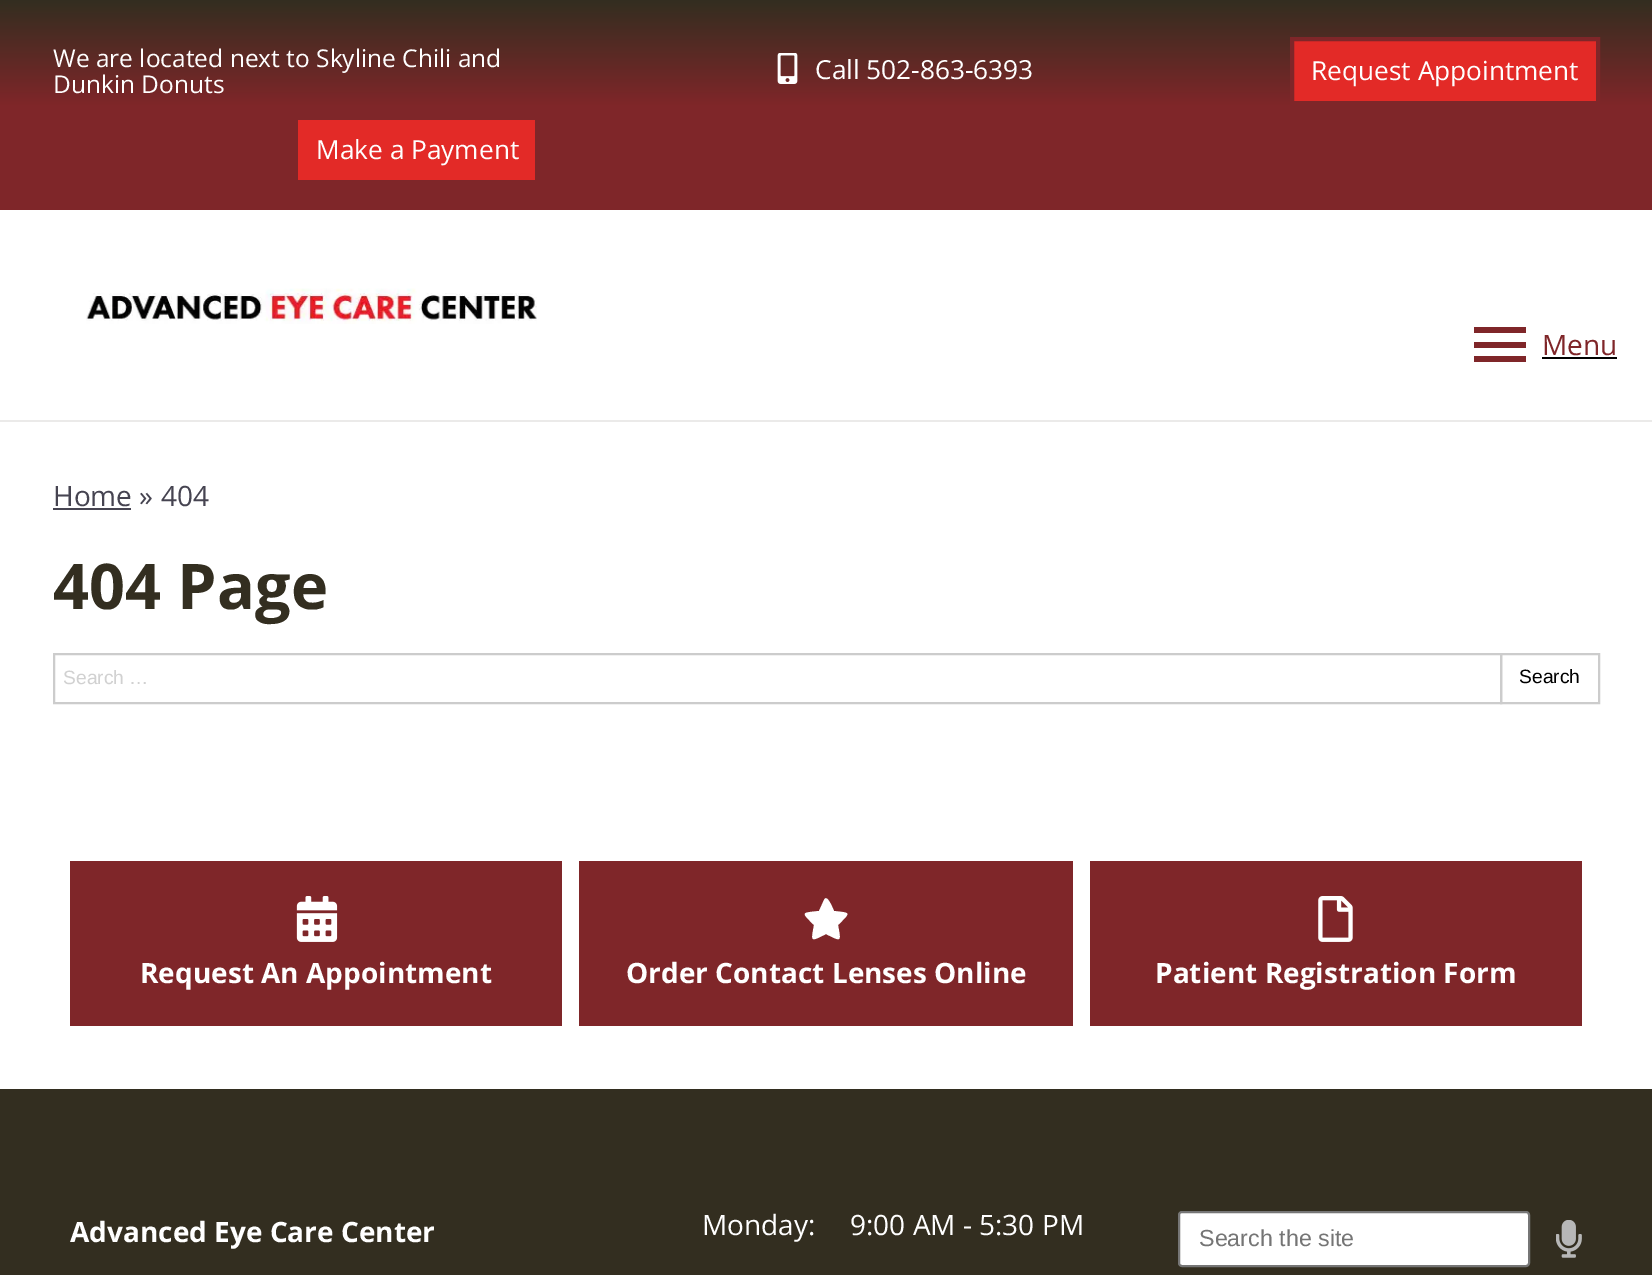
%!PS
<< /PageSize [1652 1275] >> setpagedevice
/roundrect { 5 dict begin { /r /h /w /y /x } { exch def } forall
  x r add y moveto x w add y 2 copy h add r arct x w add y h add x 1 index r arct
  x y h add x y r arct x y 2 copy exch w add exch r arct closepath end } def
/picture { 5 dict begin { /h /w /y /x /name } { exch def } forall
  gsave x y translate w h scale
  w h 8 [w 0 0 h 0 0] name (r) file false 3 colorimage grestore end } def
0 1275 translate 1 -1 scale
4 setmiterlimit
1 setgray
0 0 1652 1275 rectfill
gsave newpath 0 0 moveto 1652 0 lineto 1652 210 lineto 0 210 lineto closepath clip newpath
<< /ShadingType 2 /ColorSpace /DeviceRGB /Coords [826 0 826 210] /Extend [true true] /Function << /FunctionType 3 /Domain [0 1] /Functions [<< /FunctionType 2 /Domain [0 1] /C0 [0.2 0.18 0.125] /C1 [0.498 0.149 0.161] /N 1 >> << /FunctionType 2 /Domain [0 1] /C0 [0.498 0.149 0.161] /C1 [0.498 0.149 0.161] /N 1 >>] /Bounds [0.5] /Encode [0 1 0 1] >> >> shfill grestore
/OpenSans-Regular [24.5 0 0 -24.5 0 0] selectfont
53 67 moveto (We are located next to Skyline Chili and) show
53 93 moveto (Dunkin Donuts) show
(img1.rgb) 777 53 21 31 picture
/OpenSans-Regular [26.25 0 0 -26.25 0 0] selectfont
815 79 moveto (Call 502-863-6393) show
0.89 0.165 0.153 setrgbcolor
newpath 1292 39 moveto 1598 39 lineto 1598 103 lineto 1292 103 lineto closepath gsave fill grestore
0.498 0.149 0.161 setrgbcolor
4 setlinewidth
stroke
1 setgray
1311 80 moveto (Request Appointment) show
0.89 0.165 0.153 setrgbcolor
298 120 237 60 rectfill
1 setgray
316 159 moveto (Make a Payment) show
0.922 0.918 0.914 setrgbcolor
0 420 1652 2 rectfill
(img2.rgb) 86 288 451 36 picture
0.498 0.149 0.161 setrgbcolor
newpath 1474 327 moveto 1526 327 lineto 1526 333 lineto 1474 333 lineto 1474 327 lineto 1474 342 moveto 1526 342 lineto 1526 348 lineto 1474 348 lineto 1474 342 lineto 1474 356 moveto 1526 356 lineto 1526 362 lineto 1474 362 lineto closepath fill
/OpenSans-Regular [28 0 0 -28 0 0] selectfont
1542 355 moveto (Menu) show
0 setgray
1542 357 75 2 rectfill
0.275 0.267 0.318 setrgbcolor
53 506 moveto (Home » 404) show
53 508 78 2 rectfill
/OpenSans-Bold [63 0 0 -63 0 0] selectfont
0.2 0.18 0.125 setrgbcolor
53 609 moveto (404 Page) show
0.8 setgray
2 setlinewidth
54 654 1447 49 rectstroke
/LiberationSans-Regular [19.25 0 0 -19.25 0 0] selectfont
0.82 setgray
63 684 moveto (Search …) show
0.8 setgray
1501 654 98 49 rectstroke
0 setgray
1519 683 moveto (Search) show
0.498 0.149 0.161 setrgbcolor
70 861 492 165 rectfill
(img3.rgb) 296 896 42 46 picture
/OpenSans-Bold [28 0 0 -28 0 0] selectfont
1 setgray
140 983 moveto (Request An Appointment) show
0.498 0.149 0.161 setrgbcolor
579 861 494 165 rectfill
1 setgray
newpath 824 900 moveto 819 911 lineto 801 913 801 912 814 925 curveto 811 942 810 942 826 934 curveto 842 942 841 942 838 925 curveto 851 912 851 913 834 911 curveto 833 909 827 893 824 900 curveto closepath fill
626 983 moveto (Order Contact Lenses Online) show
0.498 0.149 0.161 setrgbcolor
1090 861 492 165 rectfill
(img4.rgb) 1318 896 35 46 picture
1 setgray
1155 983 moveto (Patient Registration Form) show
0.2 0.18 0.125 setrgbcolor
0 1089 1652 186 rectfill
1 setgray
70 1242 moveto (Advanced Eye Care Center) show
/OpenSans-Regular [28 0 0 -28 0 0] selectfont
702 1235 moveto (Monday:) show
850 1235 moveto (9:00 AM - 5:30 PM) show
1179 1212 350 54 3 roundrect gsave fill grestore
0.463 setgray
stroke
/LiberationSans-Regular [23.25 0 0 -23.25 0 0] selectfont
0.459 setgray
1199 1246 moveto (Search the site) show
(img5.rgb) 1556 1220 26 38 picture
showpage
